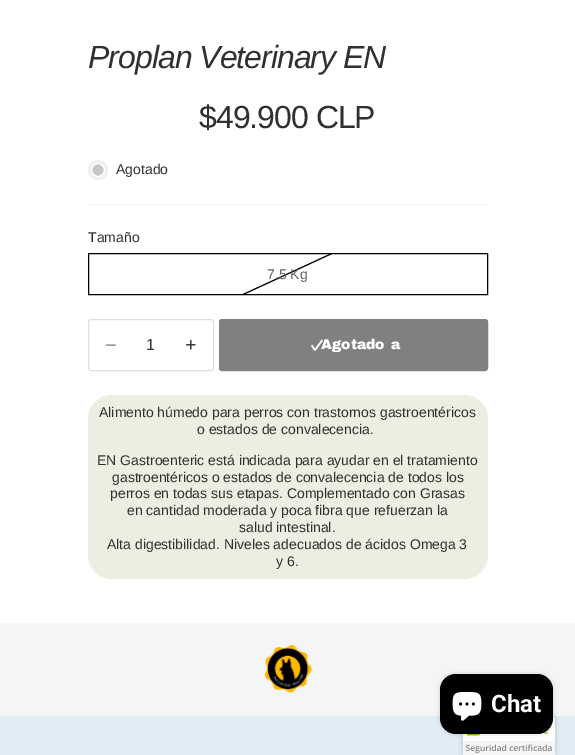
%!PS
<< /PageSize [575 755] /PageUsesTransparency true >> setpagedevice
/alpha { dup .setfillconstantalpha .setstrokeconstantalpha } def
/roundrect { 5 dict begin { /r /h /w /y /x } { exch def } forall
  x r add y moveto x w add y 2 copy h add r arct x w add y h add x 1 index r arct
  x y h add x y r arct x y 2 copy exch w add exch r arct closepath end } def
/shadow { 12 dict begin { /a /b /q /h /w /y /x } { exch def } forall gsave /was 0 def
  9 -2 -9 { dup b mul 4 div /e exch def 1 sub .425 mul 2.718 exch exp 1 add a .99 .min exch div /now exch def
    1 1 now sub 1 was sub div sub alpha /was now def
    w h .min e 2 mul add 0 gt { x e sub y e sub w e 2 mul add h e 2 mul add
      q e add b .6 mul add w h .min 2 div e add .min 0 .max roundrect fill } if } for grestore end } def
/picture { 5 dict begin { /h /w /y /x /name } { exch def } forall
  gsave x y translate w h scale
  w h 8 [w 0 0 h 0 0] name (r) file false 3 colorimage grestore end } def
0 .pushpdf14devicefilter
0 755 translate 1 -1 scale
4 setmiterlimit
1 setgray
0 0 575 755 rectfill
/LiberationSans-Italic [32 0 0 -32 0 0] selectfont
0.188 setgray
88 68 moveto -1 0 (Proplan Veterinary EN) ashow
/LiberationSans-Regular [32 0 0 -32 0 0] selectfont
199 128 moveto -1 0 ($49.900 CLP) ashow
0.937 setgray
newpath 98 170 10 0 360 arc closepath fill
0.784 setgray
newpath 98 170 6.5 0 360 arc closepath gsave fill grestore
1 setgray
1.3 setlinewidth
stroke
/LiberationSans-Regular [14 0 0 -14 0 0] selectfont
0.188 setgray
116 174 moveto (Agotado) show
0.941 setgray
newpath 488 204 moveto 488 205 lineto 487 204 lineto closepath fill
0.06 alpha
0 setgray
newpath 488 205 moveto 88 205 lineto 88 204 lineto 487 204 lineto closepath fill
1 alpha
0.188 setgray
88 242 moveto (Tamaño) show
gsave
89 254 398 40 rectclip
0.871 setgray
1 setlinewidth
newpath 487 182 moveto 89 365.5 lineto stroke
0 setgray
newpath 487 182 moveto 89 365.5 lineto stroke
grestore
0 setgray
1 setlinewidth
88.5 253.5 399 41 rectstroke
0.376 setgray
267 279 moveto (7.5 Kg) show
0.875 setgray
88.5 319.5 125 51 2.5 roundrect stroke
0.6 setgray
1.5 setlinewidth
1 setlinecap
newpath 106.5 345 moveto 115 345 lineto stroke
/LiberationSans-Regular [16 0 0 -16 0 0] selectfont
0.188 setgray
146 350 moveto (1) show
(img1.rgb) 185 339 11 11 picture
0.502 setgray
219.5 319.5 268 51 2.5 roundrect gsave fill grestore
1 setlinewidth
0 setlinecap
stroke
/ArchivoBlack-Regular [14 0 0 -14 0 0] selectfont
1 setgray
321 349 moveto (Agotado) show
1.5 setlinewidth
1 setlinecap
1 setlinejoin
newpath 312 345.5 moveto 314 349 lineto 315.5 350.5 315 350 316.5 348 curveto 322 340.5 lineto stroke
391 349 moveto (a) show
0.929 0.929 0.886 setrgbcolor
88 395 400 184 24 roundrect fill
/LiberationSans-Regular [14 0 0 -14 0 0] selectfont
0.188 setgray
99 417 moveto (Alimento húmedo para perros con trastornos gastroentéricos) show
197 434 moveto (o estados de convalecencia.) show
97 465 moveto (EN Gastroenteric está indicada para ayudar en el tratamiento) show
112 482 moveto (gastroentéricos o estados de convalecencia de todos los) show
110 498 moveto (perros en todas sus etapas. Complementado con Grasas) show
127 515 moveto (en cantidad moderada y poca fibra que refuerzan la) show
239 532 moveto (salud intestinal.) show
107 549 moveto (Alta digestibilidad. Niveles adecuados de ácidos Omega 3) show
276 566 moveto (y 6.) show
0.961 setgray
0 623 575 93 rectfill
(img2.rgb) 264 645 48 48 picture
0.882 0.929 0.961 setrgbcolor
0 716 575 39 rectfill
0 setgray
463 717 92 38 2 2.5 0.2 shadow
1 setgray
newpath 465 717 moveto 553 717 lineto 554 717 555 718 555 719 curveto 555 755 lineto 463 755 lineto 463 719 lineto 463 718 464 717 465 717 curveto closepath fill
(img4.rgb) 463 722 92 33 picture
0 setgray
440 674 113 60 16 2.5 0.15 shadow
440 674 113 60 16 roundrect fill
(img3.rgb) 452 692 30 29 picture
/Roboto-Bold [24 0 0 -24 0 0] selectfont
1 setgray
491 712 moveto (Chat) show
.poppdf14devicefilter showpage
